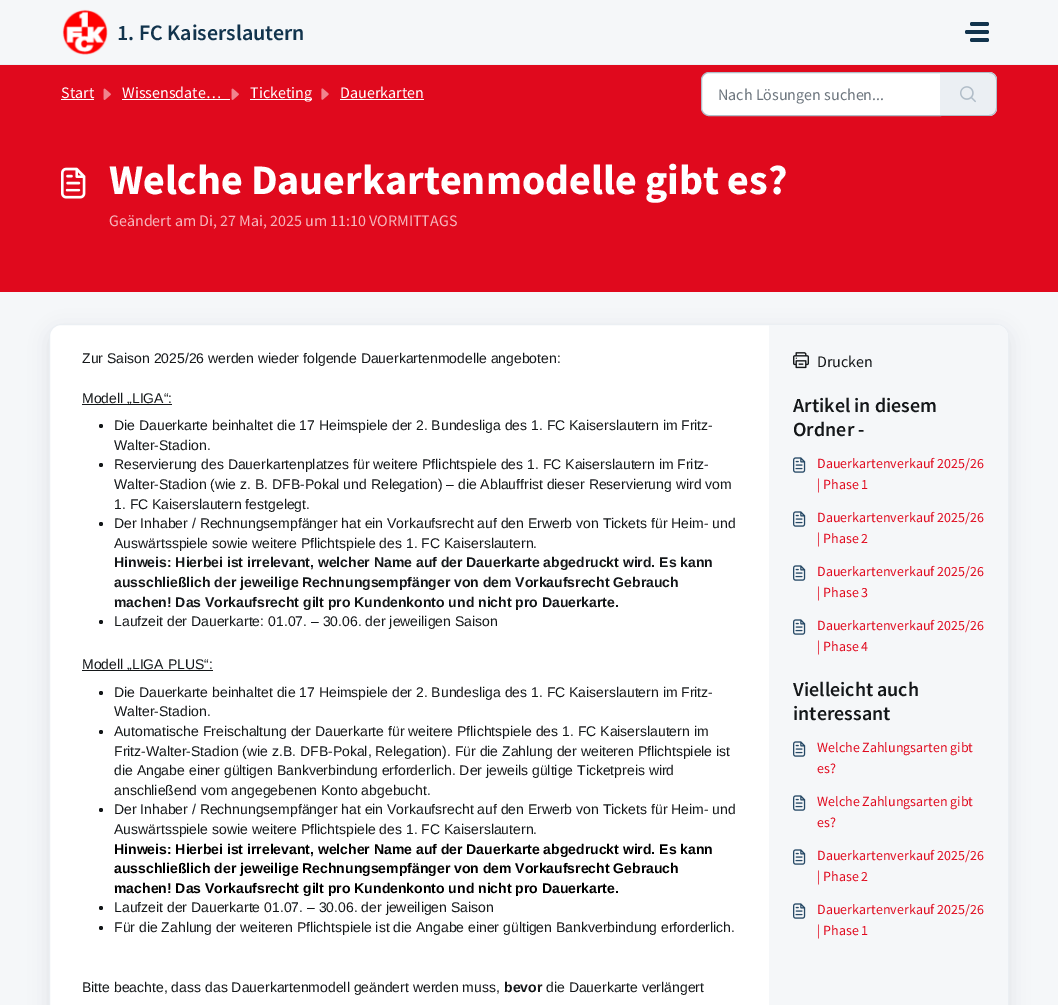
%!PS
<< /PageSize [1058 1005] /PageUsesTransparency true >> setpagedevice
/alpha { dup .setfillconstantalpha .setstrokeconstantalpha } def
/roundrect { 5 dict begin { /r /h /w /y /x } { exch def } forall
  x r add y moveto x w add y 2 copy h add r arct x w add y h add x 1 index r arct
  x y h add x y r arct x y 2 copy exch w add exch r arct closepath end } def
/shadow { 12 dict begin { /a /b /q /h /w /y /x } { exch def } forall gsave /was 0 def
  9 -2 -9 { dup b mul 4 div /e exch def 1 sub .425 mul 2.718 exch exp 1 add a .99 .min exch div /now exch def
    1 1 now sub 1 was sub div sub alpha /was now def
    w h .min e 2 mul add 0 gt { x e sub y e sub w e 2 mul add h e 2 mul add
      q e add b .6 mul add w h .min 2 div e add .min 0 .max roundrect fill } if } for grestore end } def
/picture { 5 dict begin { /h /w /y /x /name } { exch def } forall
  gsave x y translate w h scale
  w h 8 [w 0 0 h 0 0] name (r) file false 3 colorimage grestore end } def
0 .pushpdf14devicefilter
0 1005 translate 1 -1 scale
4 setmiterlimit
0.961 0.969 0.976 setrgbcolor
0 0 1058 1005 rectfill
0.922 0.937 0.953 setrgbcolor
0 64 1058 1 rectfill
(img1.rgb) 62 9 46 46 picture
/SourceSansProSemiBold-SemiBold [22 0 0 -22 0 0] selectfont
0.071 0.204 0.302 setrgbcolor
117 40 moveto (1. FC Kaiserslautern) show
970 22 19 4 2 roundrect fill
965 30 24 4 2 roundrect fill
970 38 19 4 2 roundrect fill
0.878 0.035 0.114 setrgbcolor
0 65 1058 227 rectfill
/SourceSansPro-Regular [16 0 0 -16 0 0] selectfont
1 setgray
61 98 moveto (Start) show
61 99 33 1 rectfill
(img2.rgb) 103 88 8 12 picture
122 98 moveto (Wissensdate…) show
122 99 108 1 rectfill
(img2.rgb) 231 88 8 12 picture
250 99 62 1 rectfill
250 98 moveto (Ticketing) show
(img3.rgb) 321 88 8 12 picture
340 98 moveto (Dauerkarten) show
340 99 84 1 rectfill
newpath 709 72.5 moveto 940.5 72.5 lineto 940.5 115.5 lineto 709 115.5 lineto 705 115.5 701.5 112 701.5 108 curveto 701.5 80 lineto 701.5 76 705 72.5 709 72.5 curveto closepath gsave fill grestore
0.694 0.741 0.784 setrgbcolor
stroke
0.424 0.459 0.49 setrgbcolor
718 100 moveto (Nach Lösungen suchen...) show
0.922 0.937 0.953 setrgbcolor
newpath 940 72 moveto 989 72 lineto 993.5 72 997 75.5 997 80 curveto 997 108 lineto 997 112.5 993.5 116 989 116 curveto 940 116 lineto closepath fill
0.694 0.741 0.784 setrgbcolor
newpath 940 72 moveto 989 72 lineto 993 72 997 76 997 80 curveto 997 108 lineto 997 112 993 116 989 116 curveto 940 116 lineto closepath 940 73 moveto 989 73 lineto 993 73 996 76 996 80 curveto 996 108 lineto 996 112 993 115 989 115 curveto 940 115 lineto closepath eofill
(img4.rgb) 960 86 16 17 picture
(img5.rgb) 61 167 25 32 picture
/SourceSansPro-Bold [42 0 0 -42 0 0] selectfont
1 setgray
109 194 moveto (Welche Dauerkartenmodelle gibt es?) show
/SourceSansPro-Regular [16 0 0 -16 0 0] selectfont
0.965 0.71 0.733 setrgbcolor
109 226 moveto (Geändert am Di, 27 Mai, 2025 um 11:10 VORMITTAGS) show
0.153 0.192 0.227 setrgbcolor
49 330 960 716 12 9.5 0.1 shadow
1 setgray
49.5 324.5 959 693 11.5 roundrect gsave fill grestore
0.922 0.937 0.953 setrgbcolor
stroke
/LiberationSans-Regular [14 0 0 -14 0 0] selectfont
0.078 0.09 0.098 setrgbcolor
82 363 moveto (Zur Saison 2025/26 werden wieder folgende Dauerkartenmodelle angeboten:) show
82 404 90 1 rectfill
82 403 moveto (Modell „LIGA“:) show
newpath 101 426 2 0 360 arc closepath fill
114 430 moveto (Die Dauerkarte beinhaltet die 17 Heimspiele der 2. Bundesliga des 1. FC Kaiserslautern im Fritz-) show
114 450 moveto (Walter-Stadion.) show
newpath 101 465 2 0 360 arc closepath fill
114 469 moveto (Reservierung des Dauerkartenplatzes für weitere Pflichtspiele des 1. FC Kaiserslautern im Fritz-) show
114 489 moveto (Walter-Stadion \(wie z. B. DFB-Pokal und Relegation\) – die Ablauffrist dieser Reservierung wird vom) show
114 509 moveto (1. FC Kaiserslautern festgelegt.) show
newpath 101 524 2 0 360 arc closepath fill
114 528 moveto (Der Inhaber / Rechnungsempfänger hat ein Vorkaufsrecht auf den Erwerb von Tickets für Heim- und) show
114 548 moveto (Auswärtsspiele sowie weitere Pflichtspiele des 1. FC Kaiserslautern.) show
/LiberationSans-Bold [14 0 0 -14 0 0] selectfont
114 567 moveto (Hinweis: Hierbei ist irrelevant, welcher Name auf der Dauerkarte abgedruckt wird. Es kann) show
114 587 moveto (ausschließlich der jeweilige Rechnungsempfänger von dem Vorkaufsrecht Gebrauch) show
114 607 moveto (machen! Das Vorkaufsrecht gilt pro Kundenkonto und nicht pro Dauerkarte.) show
newpath 101 622 2 0 360 arc closepath fill
/LiberationSans-Regular [14 0 0 -14 0 0] selectfont
114 626 moveto (Laufzeit der Dauerkarte: 01.07. – 30.06. der jeweiligen Saison) show
82 670 131 1 rectfill
82 669 moveto (Modell „LIGA PLUS“:) show
newpath 101 693 2 0 360 arc closepath fill
114 697 moveto (Die Dauerkarte beinhaltet die 17 Heimspiele der 2. Bundesliga des 1. FC Kaiserslautern im Fritz-) show
114 716 moveto (Walter-Stadion.) show
newpath 101 732 2 0 360 arc closepath fill
114 736 moveto (Automatische Freischaltung der Dauerkarte für weitere Pflichtspiele des 1. FC Kaiserslautern im) show
114 756 moveto (Fritz-Walter-Stadion \(wie z.B. DFB-Pokal, Relegation\). Für die Zahlung der weiteren Pflichtspiele ist) show
114 775 moveto (die Angabe einer gültigen Bankverbindung erforderlich. Der jeweils gültige Ticketpreis wird) show
114 795 moveto (anschließend vom angegebenen Konto abgebucht.) show
newpath 101 810 2 0 360 arc closepath fill
114 814 moveto (Der Inhaber / Rechnungsempfänger hat ein Vorkaufsrecht auf den Erwerb von Tickets für Heim- und) show
114 834 moveto (Auswärtsspiele sowie weitere Pflichtspiele des 1. FC Kaiserslautern.) show
/LiberationSans-Bold [14 0 0 -14 0 0] selectfont
0 setgray
114 854 moveto (Hinweis: Hierbei ist irrelevant, welcher Name auf der Dauerkarte abgedruckt wird. Es kann) show
114 873 moveto (ausschließlich der jeweilige Rechnungsempfänger von dem Vorkaufsrecht Gebrauch) show
114 893 moveto (machen! Das Vorkaufsrecht gilt pro Kundenkonto und nicht pro Dauerkarte.) show
0.078 0.09 0.098 setrgbcolor
newpath 101 908 2 0 360 arc closepath fill
/LiberationSans-Regular [14 0 0 -14 0 0] selectfont
114 912 moveto (Laufzeit der Dauerkarte 01.07. – 30.06. der jeweiligen Saison) show
newpath 101 928 2 0 360 arc closepath fill
114 932 moveto (Für die Zahlung der weiteren Pflichtspiele ist die Angabe einer gültigen Bankverbindung erforderlich.) show
82 992 moveto (Bitte beachte, dass das Dauerkartenmodell geändert werden muss,) show
/LiberationSans-Bold [14 0 0 -14 0 0] selectfont
504 992 moveto (bevor) show
/LiberationSans-Regular [14 0 0 -14 0 0] selectfont
546 992 moveto (die Dauerkarte verlängert) show
0.961 0.969 0.976 setrgbcolor
newpath 769 325 moveto 996 325 lineto 1002.5 325 1008 330.5 1008 337 curveto 1008 1005 lineto 1008 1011.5 1002.5 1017 996 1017 curveto 769 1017 lineto closepath fill
(img6.rgb) 793 352 16 17 picture
/SourceSansPro-Regular [16 0 0 -16 0 0] selectfont
0.078 0.09 0.098 setrgbcolor
817 367 moveto (Drucken) show
/SourceSansProSemiBold-SemiBold [20 0 0 -20 0 0] selectfont
793 412 moveto (Artikel in diesem) show
793 436 moveto (Ordner -) show
(img7.rgb) 793 457 13 16 picture
/SourceSansPro-Regular [14 0 0 -14 0 0] selectfont
0.878 0.035 0.114 setrgbcolor
817 468 moveto (Dauerkartenverkauf 2025/26) show
817 489 moveto (| Phase 1) show
(img7.rgb) 793 511 13 16 picture
817 522 moveto (Dauerkartenverkauf 2025/26) show
817 543 moveto (| Phase 2) show
(img7.rgb) 793 565 13 16 picture
817 576 moveto (Dauerkartenverkauf 2025/26) show
817 597 moveto (| Phase 3) show
(img7.rgb) 793 619 13 16 picture
817 630 moveto (Dauerkartenverkauf 2025/26) show
817 651 moveto (| Phase 4) show
/SourceSansProSemiBold-SemiBold [20 0 0 -20 0 0] selectfont
0.078 0.09 0.098 setrgbcolor
793 696 moveto (Vielleicht auch) show
793 720 moveto (interessant) show
(img7.rgb) 793 741 13 16 picture
/SourceSansPro-Regular [14 0 0 -14 0 0] selectfont
0.878 0.035 0.114 setrgbcolor
817 752 moveto (Welche Zahlungsarten gibt) show
817 773 moveto (es?) show
(img7.rgb) 793 795 13 16 picture
817 806 moveto (Welche Zahlungsarten gibt) show
817 827 moveto (es?) show
(img7.rgb) 793 849 13 16 picture
817 860 moveto (Dauerkartenverkauf 2025/26) show
817 881 moveto (| Phase 2) show
(img7.rgb) 793 903 13 16 picture
817 914 moveto (Dauerkartenverkauf 2025/26) show
817 935 moveto (| Phase 1) show
.poppdf14devicefilter showpage
